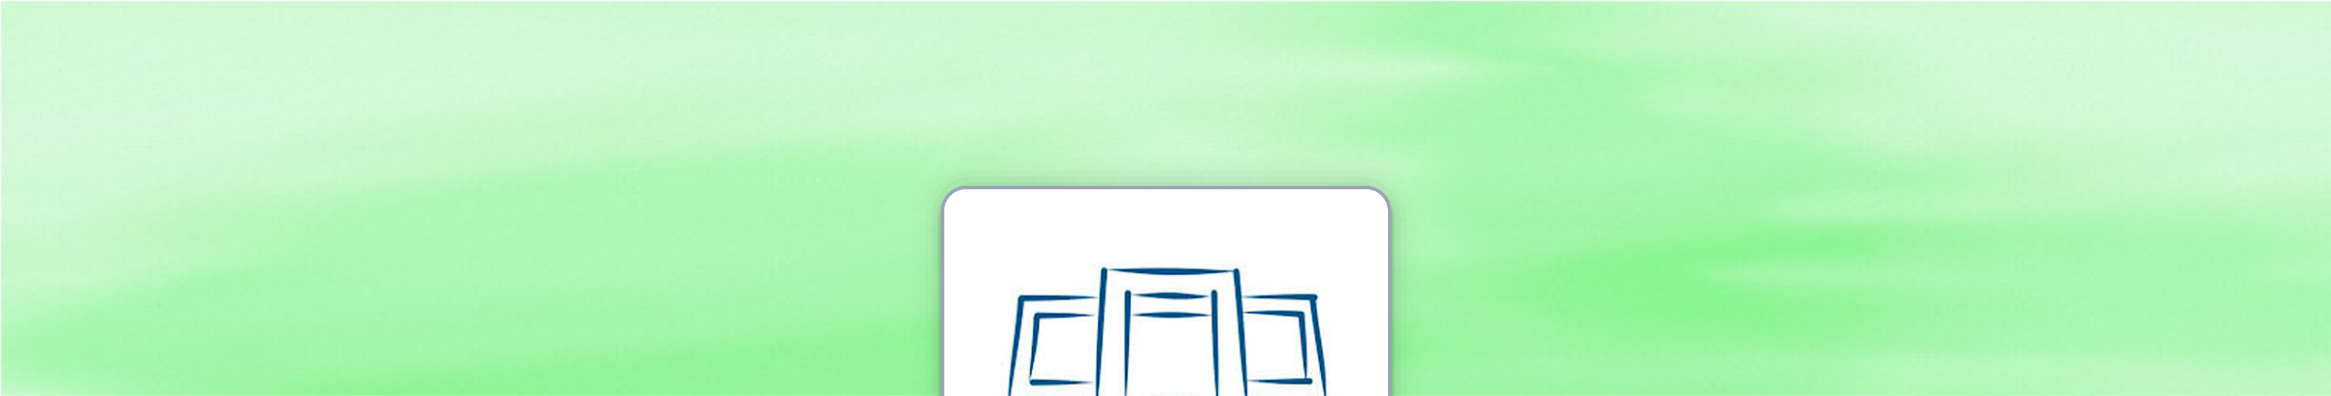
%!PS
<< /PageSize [2331 396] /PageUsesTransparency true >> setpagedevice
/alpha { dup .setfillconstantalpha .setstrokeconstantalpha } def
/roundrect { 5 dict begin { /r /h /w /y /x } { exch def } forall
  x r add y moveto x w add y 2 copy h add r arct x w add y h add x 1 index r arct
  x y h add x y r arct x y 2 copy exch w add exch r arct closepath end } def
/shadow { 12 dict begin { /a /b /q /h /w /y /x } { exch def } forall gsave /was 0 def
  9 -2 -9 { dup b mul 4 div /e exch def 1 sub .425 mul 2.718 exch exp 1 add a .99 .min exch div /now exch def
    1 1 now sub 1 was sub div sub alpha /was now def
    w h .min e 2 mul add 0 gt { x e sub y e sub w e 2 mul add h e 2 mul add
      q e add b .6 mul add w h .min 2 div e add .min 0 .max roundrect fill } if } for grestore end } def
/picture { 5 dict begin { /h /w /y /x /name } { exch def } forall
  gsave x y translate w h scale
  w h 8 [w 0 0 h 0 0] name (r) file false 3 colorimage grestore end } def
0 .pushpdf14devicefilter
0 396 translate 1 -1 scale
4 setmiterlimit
1 setgray
0 0 2331 396 rectfill
(img1.rgb) 0 0 2331 396 picture
0 setgray
941 193 450 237 25 3 0.24 shadow
941 186 450 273 25 12.5 0.2 shadow
1 setgray
942.5 187.5 447 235 23.5 roundrect gsave fill grestore
0.6 0.635 0.725 setrgbcolor
3 setlinewidth
stroke
(img2.rgb) 1000 262 332 134 picture
.poppdf14devicefilter showpage
